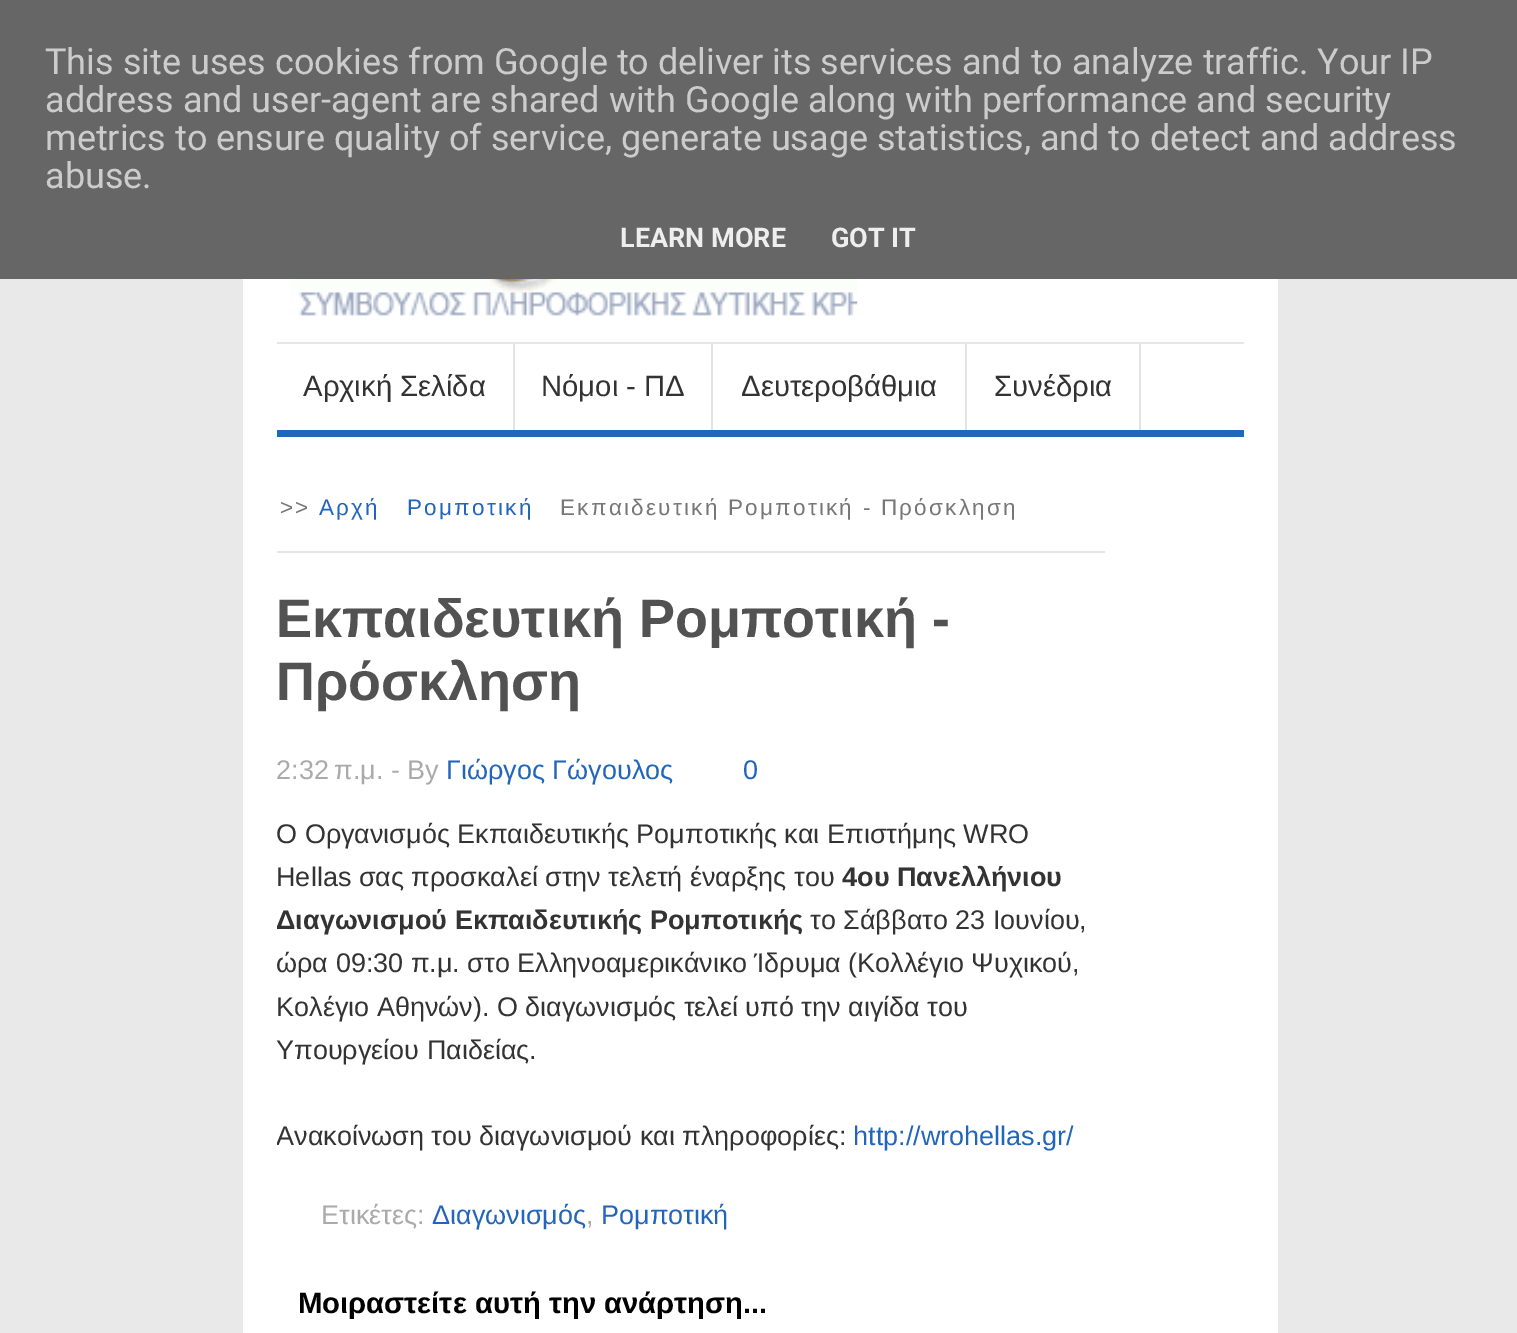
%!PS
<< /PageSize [1517 1333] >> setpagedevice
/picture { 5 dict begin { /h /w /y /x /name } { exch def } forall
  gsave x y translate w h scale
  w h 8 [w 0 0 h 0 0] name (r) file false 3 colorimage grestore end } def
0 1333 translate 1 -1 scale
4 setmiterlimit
0.914 setgray
0 0 1517 1333 rectfill
0.4 setgray
0 0 1517 279 rectfill
/Roboto-Regular [36 0 0 -36 0 0] selectfont
0.8 setgray
45 74 moveto (This site uses cookies from Google to deliver its services and to analyze traffic. Your IP) show
45 112 moveto (address and user-agent are shared with Google along with performance and security) show
45 150 moveto (metrics to ensure quality of service, generate usage statistics, and to detect and address) show
45 188 moveto (abuse.) show
/Roboto-Bold [27 0 0 -27 0 0] selectfont
0.933 setgray
620 247 moveto (LEARN MORE) show
831 247 moveto (GOT IT) show
1 setgray
243 279 1035 1054 rectfill
(img1.rgb) 290 279 568 37 picture
0.133 0.4 0.733 setrgbcolor
277 430 967 7 rectfill
0.902 setgray
277 342 967 2 rectfill
0.89 setgray
513 344 2 86 rectfill
/LiberationSans-Regular [29.25 0 0 -29.25 0 0] selectfont
0.2 setgray
303 396 moveto (Αρχική Σελίδα) show
0.89 setgray
711 344 2 86 rectfill
0.2 setgray
541 396 moveto (Νόμοι - ΠΔ) show
0.89 setgray
965 344 2 86 rectfill
0.2 setgray
741 396 moveto (Δευτεροβάθμια) show
0.89 setgray
1139 344 2 86 rectfill
0.2 setgray
994 396 moveto (Συνέδρια) show
0.902 setgray
277 551 828 2 rectfill
/LiberationSans-Regular [22.5 0 0 -22.5 0 0] selectfont
0.467 setgray
280 515 moveto 2.25 0 (>>) ashow
0.133 0.4 0.733 setrgbcolor
319 515 moveto 2.25 0 (Αρχή) ashow
407 515 moveto 2.25 0 (Ρομποτική) ashow
0.467 setgray
560 515 moveto 2.25 0 (Εκπαιδευτική Ρομποτική - Πρόσκληση) ashow
/LiberationSans-Bold [54 0 0 -54 0 0] selectfont
0.322 setgray
276 637 moveto (Εκπαιδευτική Ρομποτική -) show
276 700 moveto (Πρόσκληση) show
/LiberationSans-Regular [27 0 0 -27 0 0] selectfont
0.667 setgray
276 779 moveto (2:32 π.μ. - By) show
0.133 0.4 0.733 setrgbcolor
446 779 moveto (Γιώργος Γώγουλος) show
743 779 moveto (0) show
0.2 setgray
276 843 moveto (Ο Οργανισμός Εκπαιδευτικής Ρομποτικής και Επιστήμης WRO) show
276 886 moveto (Hellas σας προσκαλεί στην τελετή έναρξης του) show
/LiberationSans-Bold [27 0 0 -27 0 0] selectfont
842 886 moveto (4ου Πανελλήνιου) show
gsave
277 488 862 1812 rectclip
276 929 moveto (Διαγωνισμού Εκπαιδευτικής Ρομποτικής) show
grestore
/LiberationSans-Regular [27 0 0 -27 0 0] selectfont
810 929 moveto (το Σάββατο 23 Ιουνίου,) show
gsave
277 488 862 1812 rectclip
276 972 moveto (ώρα 09:30 π.μ. στο Ελληνοαμερικάνικο) show
grestore
754 972 moveto (Ίδρυμα \(Κολλέγιο Ψυχικού,) show
276 1016 moveto (Κολέγιο Αθηνών\). Ο διαγωνισμός τελεί υπό την αιγίδα του) show
276 1059 moveto (Υπουργείου Παιδείας.) show
gsave
277 488 862 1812 rectclip
276 1145 moveto (Ανακοίνωση του διαγωνισμού και πληροφορίες:) show
grestore
0.133 0.4 0.733 setrgbcolor
853 1145 moveto (http://wrohellas.gr/) show
0.667 setgray
321 1224 moveto (Ετικέτες:) show
0.133 0.4 0.733 setrgbcolor
432 1224 moveto (Διαγωνισμός) show
0.667 setgray
586 1224 moveto (,) show
0.133 0.4 0.733 setrgbcolor
601 1224 moveto (Ρομποτική) show
/LiberationSans-Bold [29.25 0 0 -29.25 0 0] selectfont
0 setgray
298 1313 moveto (Μοιραστείτε αυτή την ανάρτηση...) show
showpage
